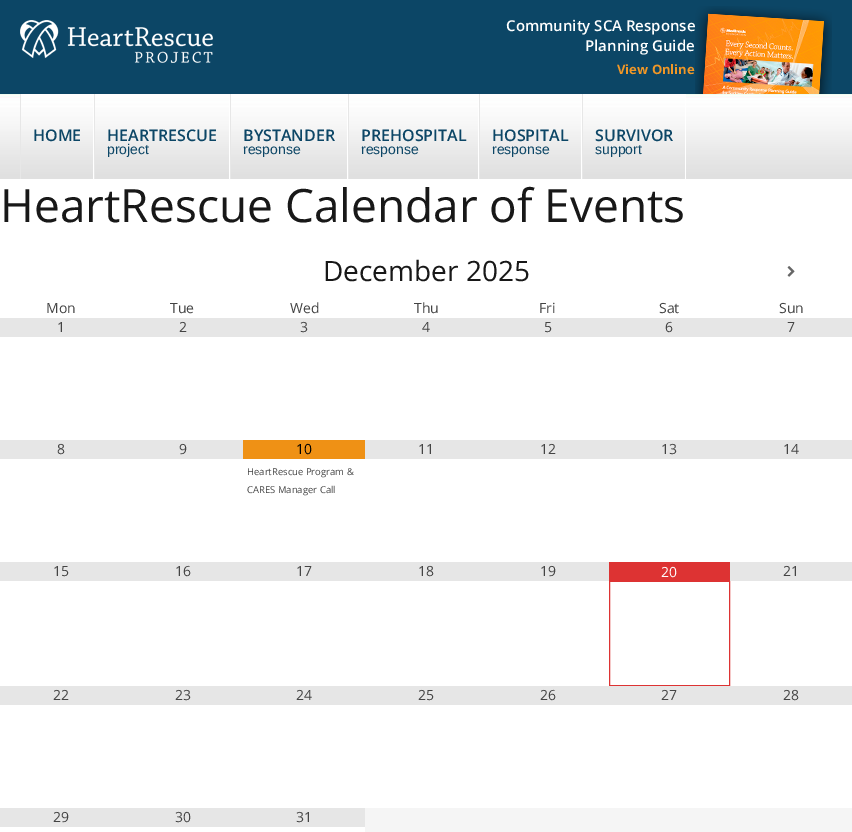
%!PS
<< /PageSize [852 832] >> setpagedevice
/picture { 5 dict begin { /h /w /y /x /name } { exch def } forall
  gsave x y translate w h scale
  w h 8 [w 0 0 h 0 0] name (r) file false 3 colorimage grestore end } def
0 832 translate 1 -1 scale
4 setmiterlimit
1 setgray
0 0 852 832 rectfill
0.047 0.275 0.4 setrgbcolor
0 0 852 94 rectfill
(img1.rgb) 0 94 852 85 picture
(img2.rgb) 20 20 193 43 picture
/OpenSans-SemiBold [15 0 0 -15 0 0] selectfont
1 setgray
506 31 moveto (Community SCA Response) show
585 51 moveto (Planning Guide) show
(img3.rgb) 695 6 137 88 picture
/OpenSans-Bold [13 0 0 -13 0 0] selectfont
0.941 0.592 0.153 setrgbcolor
617 74 moveto (View Online) show
1 setgray
20 94 666 4 rectfill
93 94 1 85 rectfill
0.906 setgray
20 94 1 85 rectfill
/OpenSans-SemiBold [16 0 0 -16 0 0] selectfont
0.047 0.275 0.4 setrgbcolor
33 141 moveto (HOME) show
1 setgray
229 94 1 85 rectfill
0.906 setgray
94 94 1 85 rectfill
0.047 0.275 0.4 setrgbcolor
107 141 moveto (HEARTRESCUE) show
/LiberationSans-Regular [14 0 0 -14 0 0] selectfont
107 154 moveto (project) show
1 setgray
347 94 1 85 rectfill
0.906 setgray
230 94 1 85 rectfill
/OpenSans-SemiBold [16 0 0 -16 0 0] selectfont
0.047 0.275 0.4 setrgbcolor
243 141 moveto (BYSTANDER) show
/LiberationSans-Regular [14 0 0 -14 0 0] selectfont
243 154 moveto (response) show
1 setgray
478 94 1 85 rectfill
0.906 setgray
348 94 1 85 rectfill
/OpenSans-SemiBold [16 0 0 -16 0 0] selectfont
0.047 0.275 0.4 setrgbcolor
361 141 moveto (PREHOSPITAL) show
/LiberationSans-Regular [14 0 0 -14 0 0] selectfont
361 154 moveto (response) show
1 setgray
581 94 1 85 rectfill
0.906 setgray
479 94 1 85 rectfill
/OpenSans-SemiBold [16 0 0 -16 0 0] selectfont
0.047 0.275 0.4 setrgbcolor
492 141 moveto (HOSPITAL) show
/LiberationSans-Regular [14 0 0 -14 0 0] selectfont
492 154 moveto (response) show
1 setgray
685 94 1 85 rectfill
0.906 setgray
582 94 1 85 rectfill
/OpenSans-SemiBold [16 0 0 -16 0 0] selectfont
0.047 0.275 0.4 setrgbcolor
595 141 moveto (SURVIVOR) show
/LiberationSans-Regular [14 0 0 -14 0 0] selectfont
595 154 moveto (support) show
/OpenSans-Regular [46 0 0 -46 0 0] selectfont
0.094 setgray
0 222 moveto (HeartRescue Calendar of Events) show
/OpenSans-Regular [28 0 0 -28 0 0] selectfont
323 281 moveto (December 2025) show
(img4.rgb) 787 266 8 11 picture
/OpenSans-Regular [14 0 0 -14 0 0] selectfont
0.267 setgray
46 313 moveto (Mon) show
170 313 moveto (Tue) show
290 313 moveto (Wed) show
414 313 moveto (Thu) show
539 313 moveto (Fri) show
659 313 moveto (Sat) show
779 313 moveto (Sun) show
0.902 setgray
0 318 852 19 rectfill
0.267 setgray
57 332 moveto (1) show
179 332 moveto (2) show
300 332 moveto (3) show
422 332 moveto (4) show
544 332 moveto (5) show
665 332 moveto (6) show
787 332 moveto (7) show
0.902 setgray
0 440 243 19 rectfill
0.267 setgray
57 454 moveto (8) show
179 454 moveto (9) show
0.937 0.569 0.082 setrgbcolor
243 440 122 19 rectfill
0 setgray
296 454 moveto (10) show
/OpenSans-Regular [9.5 0 0 -9.5 0 0] selectfont
0.267 setgray
247 475 moveto (HeartRescue Program &) show
247 493 moveto (CARES Manager Call) show
0.902 setgray
365 440 487 19 rectfill
/OpenSans-Regular [14 0 0 -14 0 0] selectfont
0.267 setgray
418 454 moveto (11) show
540 454 moveto (12) show
661 454 moveto (13) show
783 454 moveto (14) show
0.902 setgray
0 562 609 19 rectfill
0.267 setgray
53 576 moveto (15) show
175 576 moveto (16) show
296 576 moveto (17) show
418 576 moveto (18) show
540 576 moveto (19) show
0.867 0.2 0.2 setrgbcolor
609.5 562.5 120 123 rectstroke
610 563 119 19 rectfill
1 setgray
661 577 moveto (20) show
0.902 setgray
730 562 122 19 rectfill
0.267 setgray
783 576 moveto (21) show
0.902 setgray
0 686 852 19 rectfill
0.267 setgray
53 700 moveto (22) show
175 700 moveto (23) show
296 700 moveto (24) show
418 700 moveto (25) show
540 700 moveto (26) show
661 700 moveto (27) show
783 700 moveto (28) show
0.902 setgray
0 808 365 19 rectfill
0.267 setgray
53 822 moveto (29) show
175 822 moveto (30) show
296 822 moveto (31) show
0.961 setgray
365 808 487 24 rectfill
showpage
